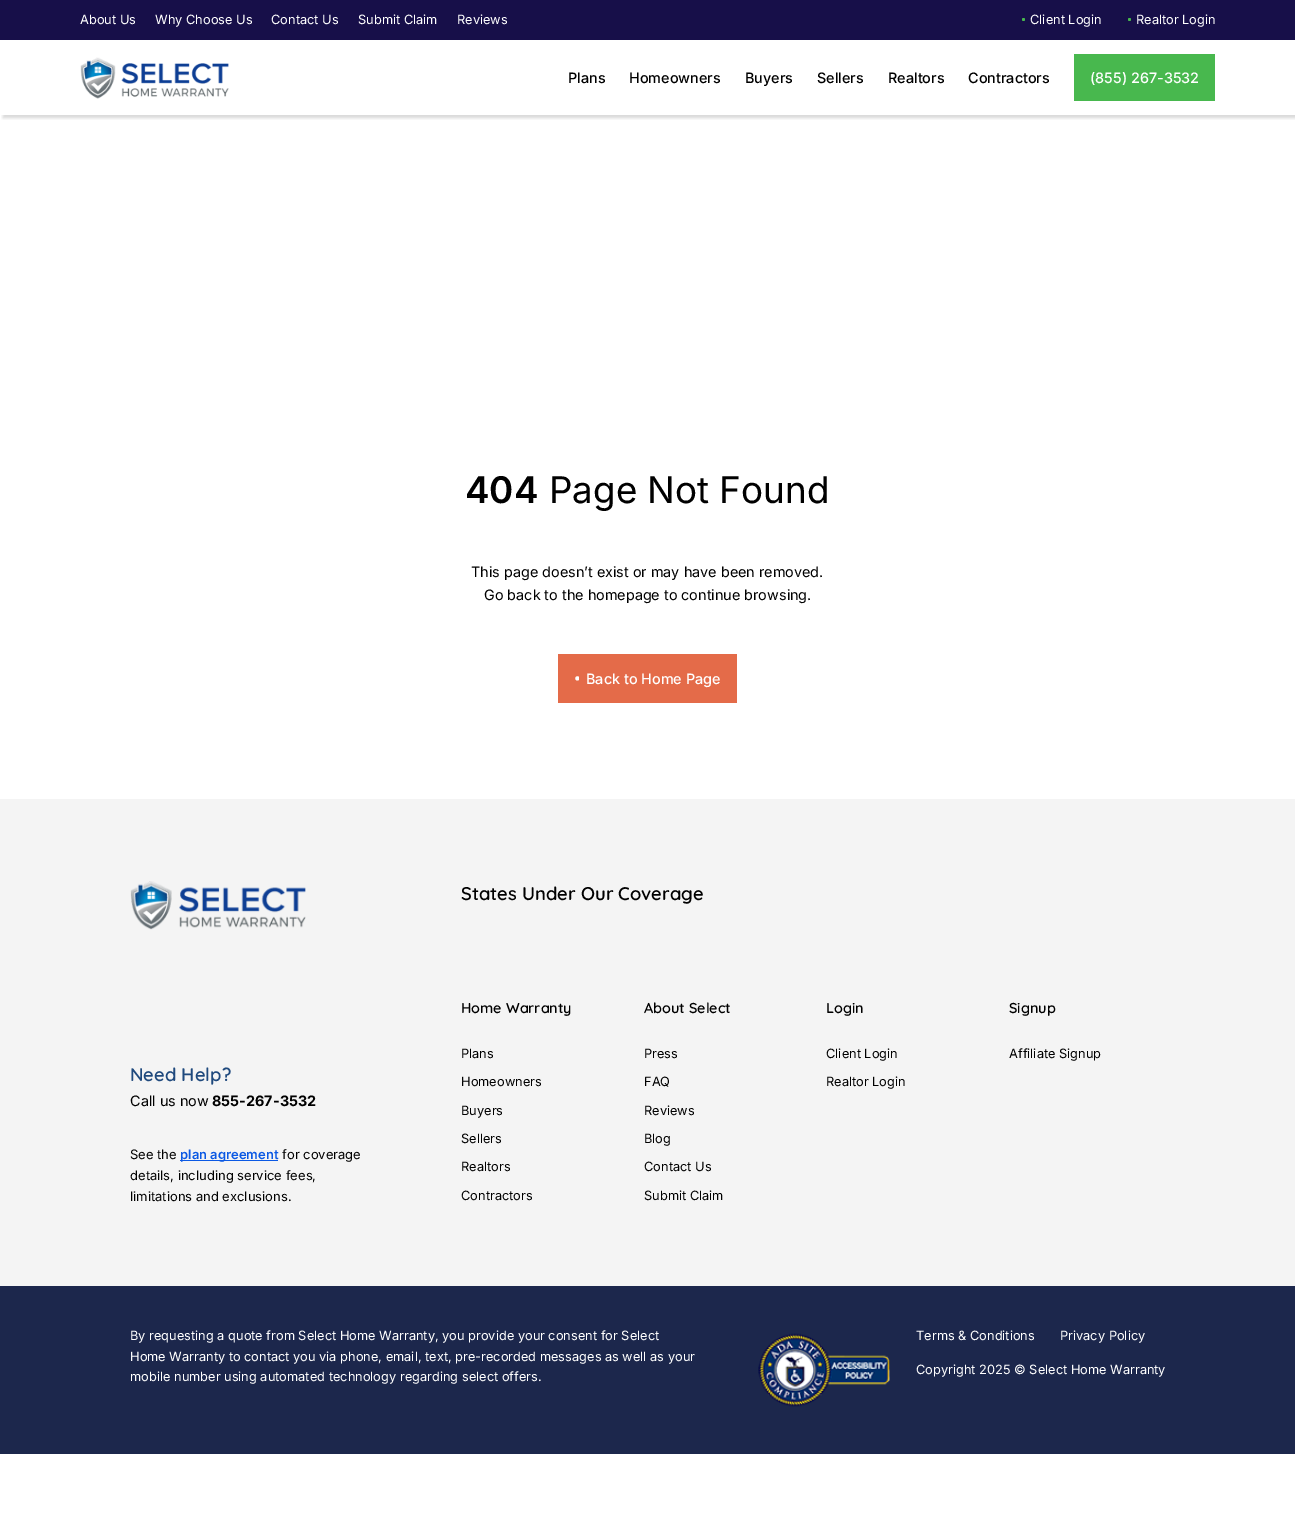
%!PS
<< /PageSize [1295 1540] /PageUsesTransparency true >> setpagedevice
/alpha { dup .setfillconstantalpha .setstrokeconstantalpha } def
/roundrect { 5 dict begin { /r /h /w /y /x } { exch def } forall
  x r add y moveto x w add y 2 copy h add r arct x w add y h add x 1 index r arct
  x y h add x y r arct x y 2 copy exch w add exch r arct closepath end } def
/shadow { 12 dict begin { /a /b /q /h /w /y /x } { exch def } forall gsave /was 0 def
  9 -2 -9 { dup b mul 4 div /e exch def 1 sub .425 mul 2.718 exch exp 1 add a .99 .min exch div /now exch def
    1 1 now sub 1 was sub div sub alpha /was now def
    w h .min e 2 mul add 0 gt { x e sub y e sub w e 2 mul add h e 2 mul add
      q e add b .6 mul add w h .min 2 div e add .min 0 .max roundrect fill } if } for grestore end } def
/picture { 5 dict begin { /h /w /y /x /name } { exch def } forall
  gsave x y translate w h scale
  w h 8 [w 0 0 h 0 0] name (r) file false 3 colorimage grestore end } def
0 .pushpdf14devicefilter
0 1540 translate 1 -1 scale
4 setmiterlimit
1 setgray
0 0 1295 1540 rectfill
0.09 0.059 0.286 setrgbcolor
0 0 1295 40 rectfill
/Inter-Regular [12.8 0 0 -12.8 0 0] selectfont
1 setgray
80 24 moveto (About Us) show
155 24 moveto (Why Choose Us) show
271 24 moveto (Contact Us) show
358 24 moveto (Submit Claim) show
457 24 moveto (Reviews) show
0.282 0.722 0.306 setrgbcolor
newpath 1023.5 19.5 1.5 0 360 arc closepath fill
1 setgray
1030 24 moveto (Client Login) show
0.282 0.722 0.306 setrgbcolor
newpath 1129.5 19.5 1.5 0 360 arc closepath fill
1 setgray
1136 24 moveto (Realtor Login) show
gsave
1 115 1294 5 rectclip
0 setgray
3 43 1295 75 0 1.5 0.15 shadow
grestore
(img1.rgb) 80 57 149 42 picture
/Inter-Medium [14.4 0 0 -14.4 0 0] selectfont
0 setgray
568 83 moveto (Plans) show
629 83 moveto (Homeowners) show
745 83 moveto (Buyers) show
817 83 moveto (Sellers) show
888 83 moveto (Realtors) show
968 83 moveto (Contractors) show
0.282 0.722 0.306 setrgbcolor
1074 54 141 47 rectfill
1 setgray
1090 83 moveto (\(855\) 267-3532) show
/Inter-SemiBold [36.75 0 0 -36.75 0 0] selectfont
0 setgray
465 503 moveto (404) show
/Inter-Regular [36.75 0 0 -36.75 0 0] selectfont
549 503 moveto (Page Not Found) show
/Inter-Regular [14.4 0 0 -14.4 0 0] selectfont
471 577 moveto (This page doesn’t exist or may have been removed.) show
484 600 moveto (Go back to the homepage to continue browsing.) show
0.894 0.42 0.286 setrgbcolor
558 654 179 49 rectfill
gsave
575 676 4 5 rectclip
1 setgray
newpath 577.4 678.4 2.1 0 360 arc closepath fill
grestore
/Inter-Medium [14.4 0 0 -14.4 0 0] selectfont
1 setgray
586 684 moveto (Back to Home Page) show
0.957 setgray
0 799 1295 487 rectfill
(img2.rgb) 130 881 176 49 picture
/Quicksand-SemiBold [18.4 0 0 -18.4 0 0] selectfont
0.122 0.286 0.49 setrgbcolor
130 1081 moveto (Need Help?) show
/Inter-Regular [14.4 0 0 -14.4 0 0] selectfont
0 setgray
130 1106 moveto (Call us now) show
/Inter-Bold [14.4 0 0 -14.4 0 0] selectfont
212 1106 moveto (855-267-3532) show
/Inter-Regular [13 0 0 -13 0 0] selectfont
130 1159 moveto (See the) show
0.043 0.349 0.894 setrgbcolor
180 1160 98 1 rectfill
/Inter-SemiBold [13 0 0 -13 0 0] selectfont
180 1159 moveto (plan agreement) show
/Inter-Regular [13 0 0 -13 0 0] selectfont
0 setgray
282 1159 moveto (for coverage) show
130 1180 moveto (details, including service fees,) show
130 1201 moveto (limitations and exclusions.) show
/Quicksand-SemiBold [18.4 0 0 -18.4 0 0] selectfont
461 900 moveto (States Under Our Coverage) show
/Quicksand-SemiBold [14.4 0 0 -14.4 0 0] selectfont
461 1013 moveto (Home Warranty) show
/Inter-Regular [12.8 0 0 -12.8 0 0] selectfont
461 1058 moveto (Plans) show
461 1086 moveto (Homeowners) show
461 1115 moveto (Buyers) show
461 1143 moveto (Sellers) show
461 1171 moveto (Realtors) show
461 1200 moveto (Contractors) show
/Quicksand-SemiBold [14.4 0 0 -14.4 0 0] selectfont
644 1013 moveto (About Select) show
/Inter-Regular [12.8 0 0 -12.8 0 0] selectfont
644 1058 moveto (Press) show
644 1086 moveto (FAQ) show
644 1115 moveto (Reviews) show
644 1143 moveto (Blog) show
644 1171 moveto (Contact Us) show
644 1200 moveto (Submit Claim) show
/Quicksand-SemiBold [14.4 0 0 -14.4 0 0] selectfont
826 1013 moveto (Login) show
/Inter-Regular [12.8 0 0 -12.8 0 0] selectfont
826 1058 moveto (Client Login) show
826 1086 moveto (Realtor Login) show
/Quicksand-SemiBold [14.4 0 0 -14.4 0 0] selectfont
1009 1013 moveto (Signup) show
/Inter-Regular [12.8 0 0 -12.8 0 0] selectfont
1009 1058 moveto (Affiliate Signup) show
0.11 0.153 0.298 setrgbcolor
0 1286 1295 168 rectfill
1 setgray
130 1340 moveto (By requesting a quote from Select Home Warranty, you provide your consent for Select) show
130 1361 moveto (Home Warranty to contact you via phone, email, text, pre-recorded messages as well as your) show
130 1381 moveto (mobile number using automated technology regarding select offers.) show
(img3.rgb) 758 1333 132 74 picture
916 1340 moveto (Terms & Conditions) show
1060 1340 moveto (Privacy Policy) show
916 1374 moveto (Copyright 2025 © Select Home Warranty) show
.poppdf14devicefilter showpage
